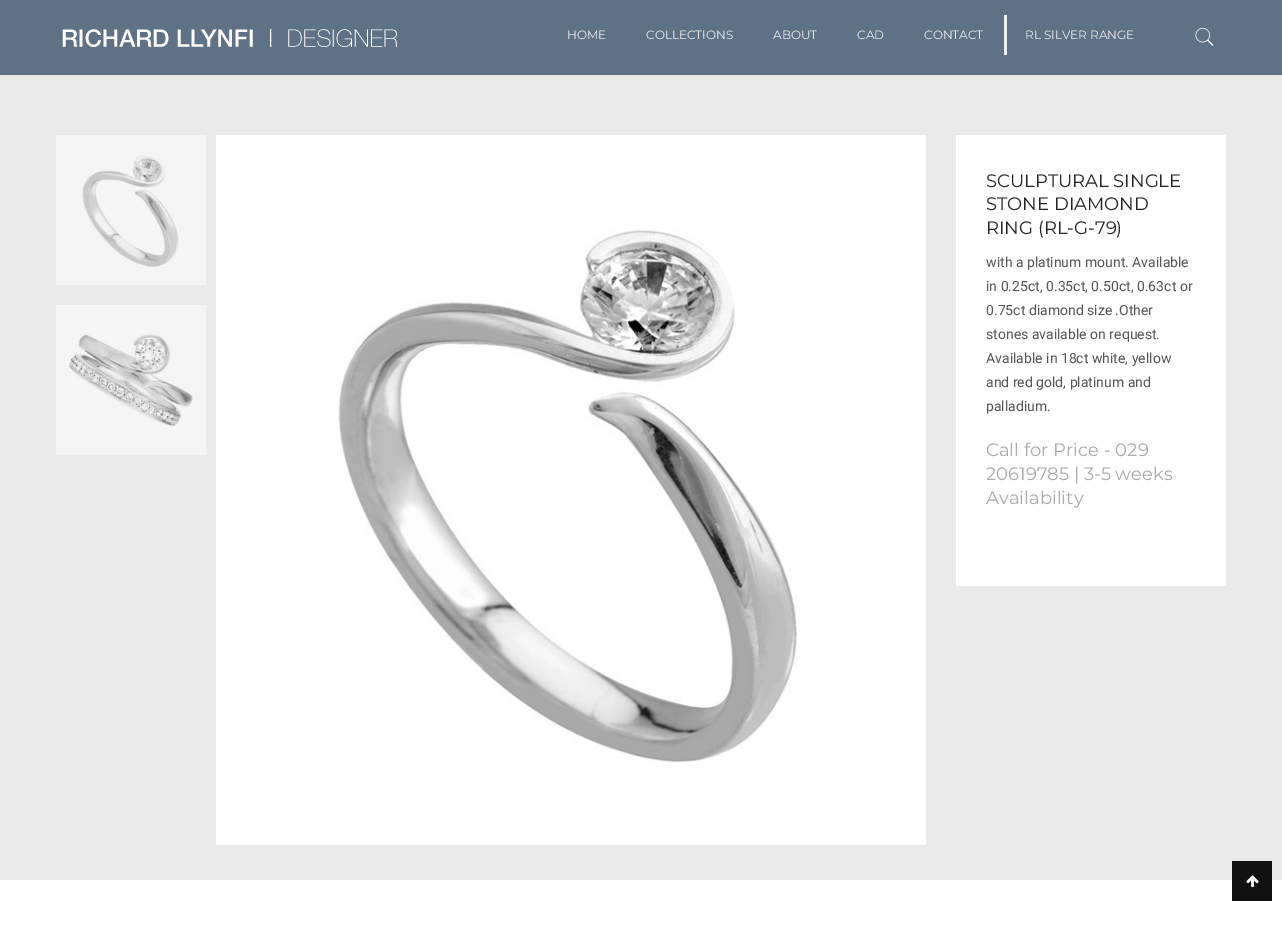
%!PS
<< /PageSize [1282 933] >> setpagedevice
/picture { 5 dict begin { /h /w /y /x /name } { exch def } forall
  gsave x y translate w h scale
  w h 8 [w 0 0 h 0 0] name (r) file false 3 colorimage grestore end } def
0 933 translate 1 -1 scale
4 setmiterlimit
1 setgray
0 0 1282 933 rectfill
0.369 0.443 0.522 setrgbcolor
0 0 1282 75 rectfill
(img1.rgb) 62 29 336 18 picture
/Montserrat-Thin [12 0 0 -12 0 0] selectfont
0.918 setgray
567 39 moveto (HOME) show
646 39 moveto (COLLECTIONS) show
773 39 moveto (ABOUT) show
857 39 moveto (CAD) show
924 39 moveto (CONTACT) show
0.933 setgray
1004 15 3 40 rectfill
0.918 setgray
1025 39 moveto (RL SILVER RANGE) show
(img2.rgb) 1195 27 19 19 picture
0 75 1282 805 rectfill
0.961 setgray
56.5 135.5 149 149 rectstroke
(img3.rgb) 57 136 148 148 picture
56.5 305.5 149 149 rectstroke
(img4.rgb) 57 306 148 148 picture
(img5.rgb) 216 135 710 710 picture
1 setgray
956 135 270 451 rectfill
/Montserrat-Thin [18 0 0 -18 0 0] selectfont
0.133 setgray
986 187 moveto (SCULPTURAL SINGLE) show
986 210 moveto (STONE DIAMOND) show
986 234 moveto (RING \(RL-G-79\)) show
/Roboto-Regular [14 0 0 -14 0 0] selectfont
0.333 setgray
986 267 moveto (with a platinum mount. Available) show
986 291 moveto (in 0.25ct, 0.35ct, 0.50ct, 0.63ct or) show
986 315 moveto (0.75ct diamond size .Other) show
986 339 moveto (stones available on request.) show
986 363 moveto (Available in 18ct white, yellow) show
986 387 moveto (and red gold, platinum and) show
986 411 moveto (palladium.) show
/Montserrat-Thin [18 0 0 -18 0 0] selectfont
0.667 setgray
986 456 moveto (Call for Price - 029) show
986 480 moveto (20619785 | 3-5 weeks) show
986 504 moveto (Availability) show
0.067 setgray
1232 861 40 40 rectfill
(img6.rgb) 1246 875 13 12 picture
showpage
